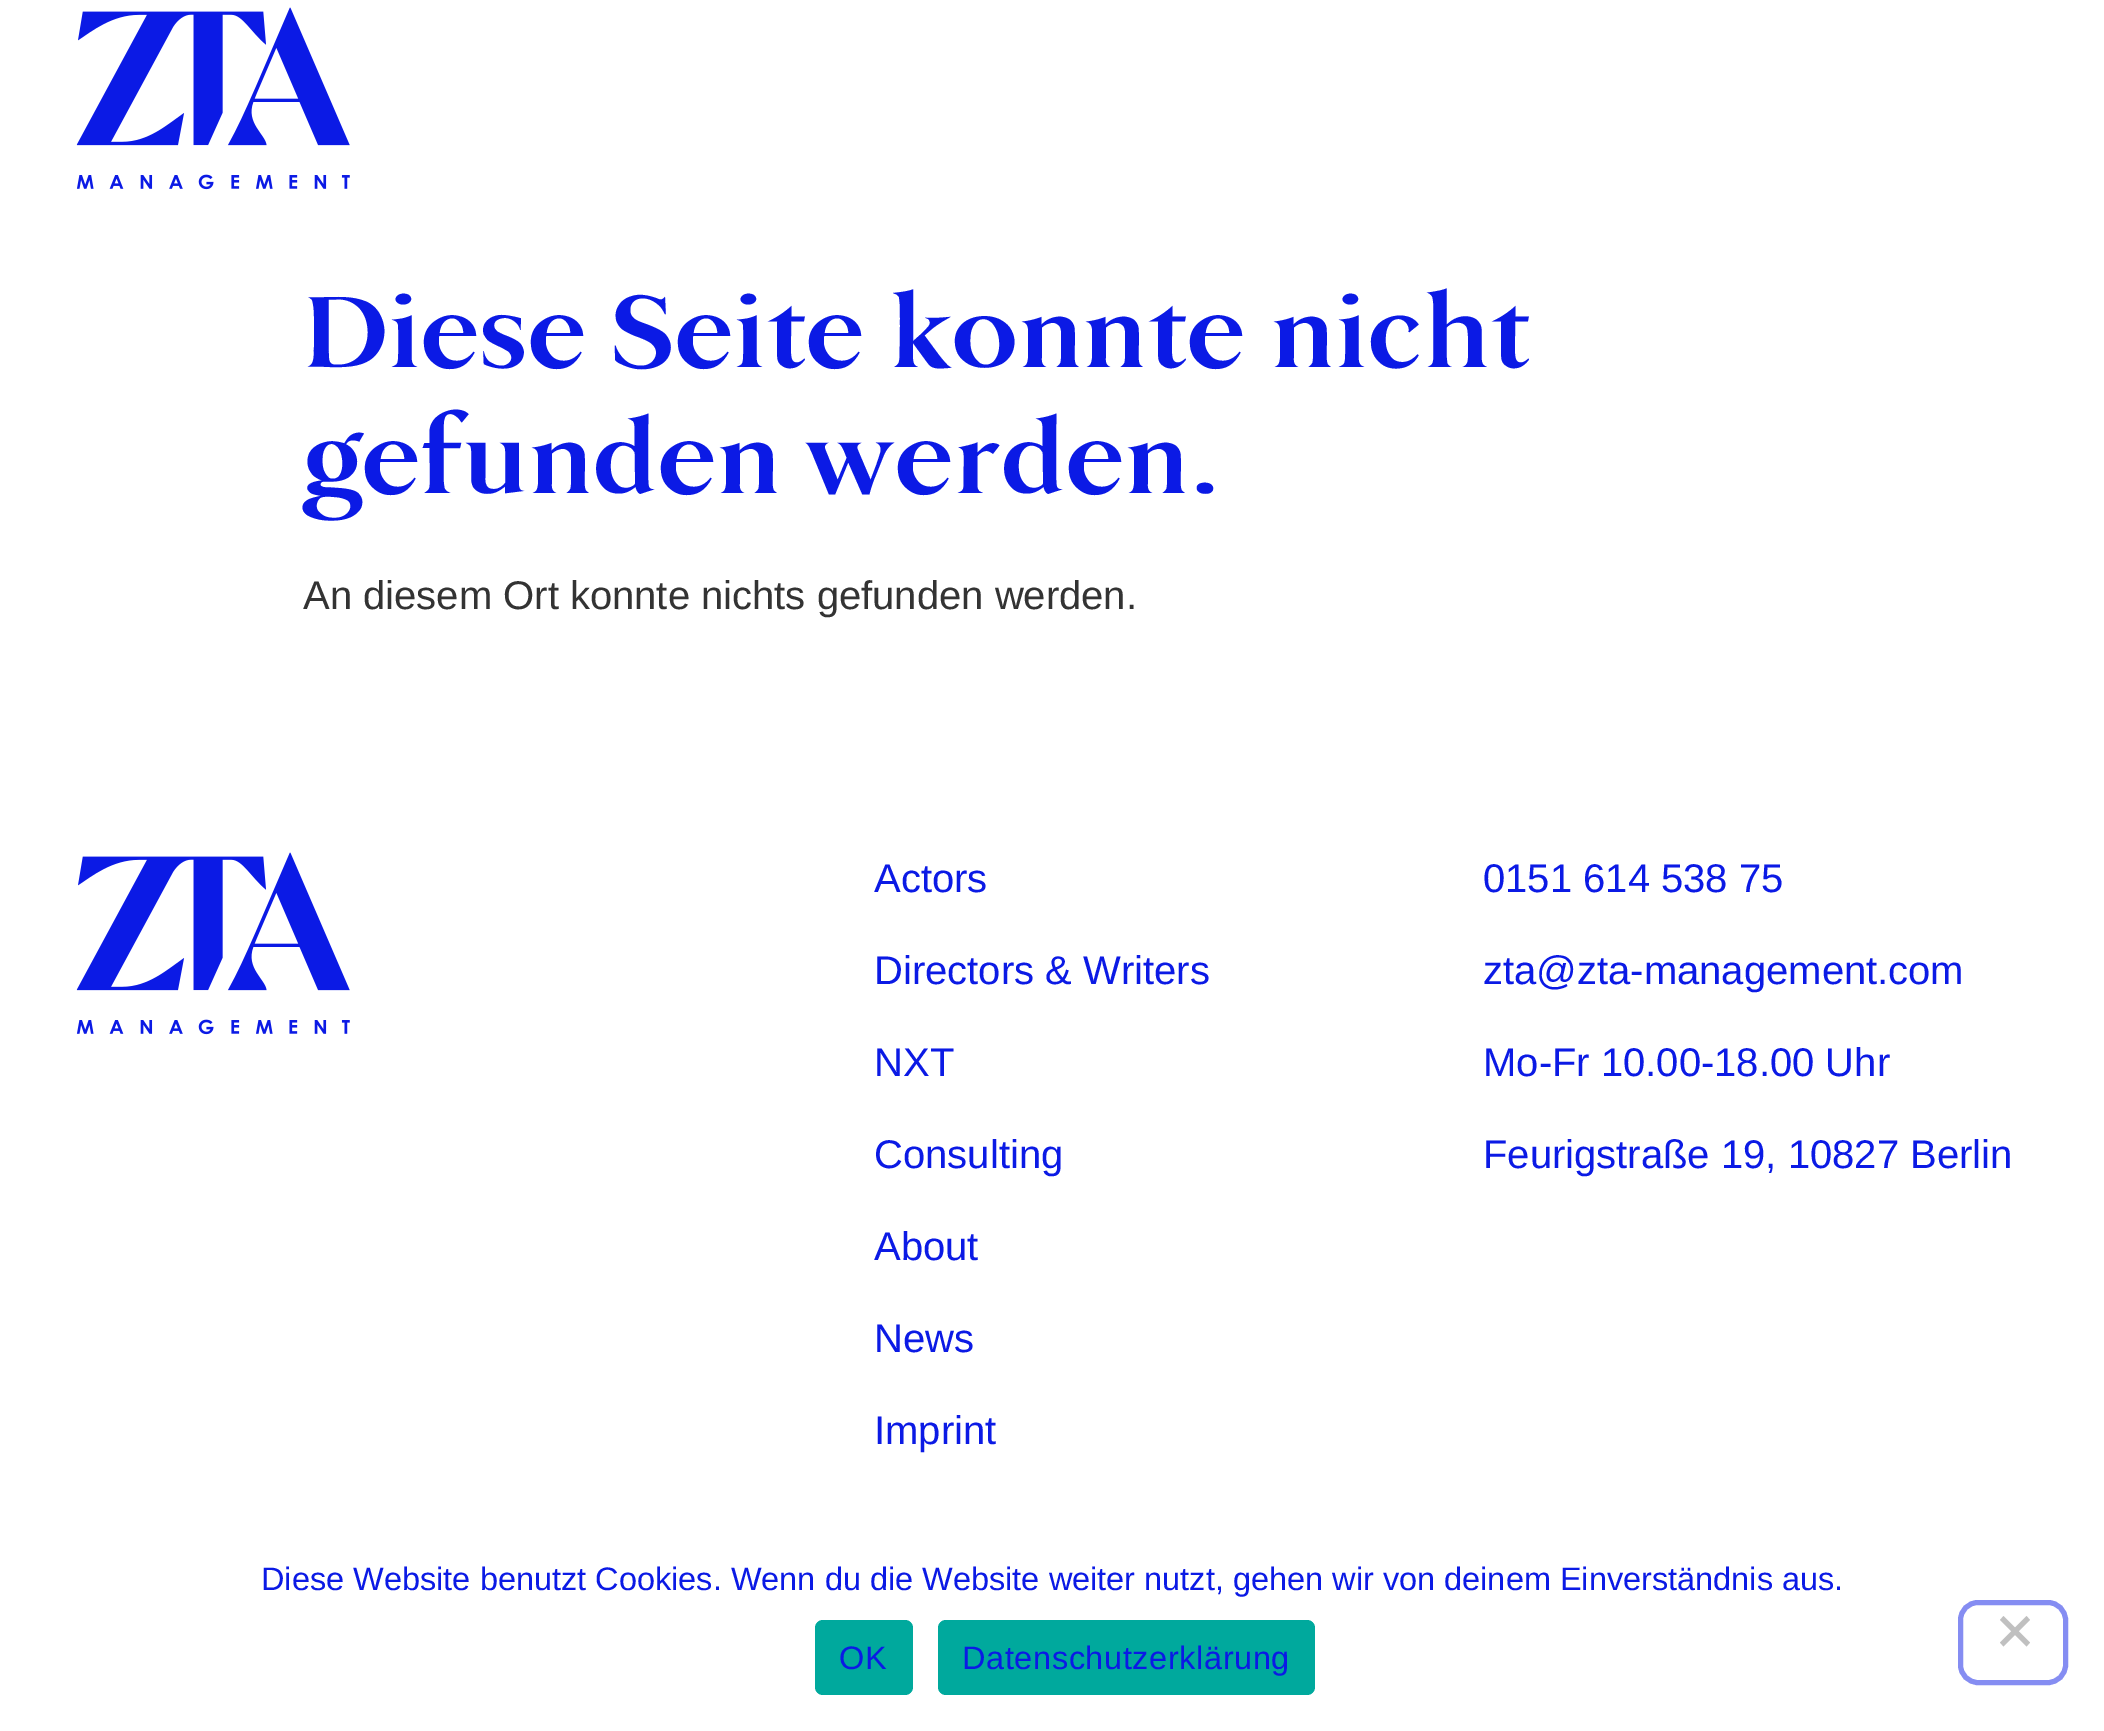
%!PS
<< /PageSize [2104 1731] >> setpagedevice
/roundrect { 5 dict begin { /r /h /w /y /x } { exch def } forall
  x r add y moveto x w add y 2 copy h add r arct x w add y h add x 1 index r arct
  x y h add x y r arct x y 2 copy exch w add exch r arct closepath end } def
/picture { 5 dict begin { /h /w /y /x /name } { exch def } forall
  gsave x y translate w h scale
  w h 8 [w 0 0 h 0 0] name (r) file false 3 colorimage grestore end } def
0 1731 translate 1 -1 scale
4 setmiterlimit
1 setgray
0 0 2104 1731 rectfill
(img1.rgb) 76 7 274 183 picture
/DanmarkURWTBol-Bold [105 0 0 -105 0 0] selectfont
0.043 0.102 0.898 setrgbcolor
303 367 moveto (Diese Seite konnte nicht) show
303 493 moveto (gefunden werden.) show
/LiberationSans-Regular [40 0 0 -40 0 0] selectfont
0.2 setgray
303 609 moveto (An diesem Ort konnte nichts gefunden werden.) show
(img1.rgb) 76 852 274 183 picture
0.043 0.102 0.898 setrgbcolor
874 892 moveto (Actors) show
874 984 moveto (Directors & Writers) show
874 1076 moveto (NXT) show
874 1168 moveto (Consulting) show
874 1260 moveto (About) show
874 1352 moveto (News) show
874 1444 moveto (Imprint) show
1483 892 moveto (0151 614 538 75) show
1483 984 moveto (zta@zta-management.com) show
1483 1076 moveto (Mo-Fr 10.00-18.00 Uhr) show
1483 1168 moveto (Feurigstraße 19, 10827 Berlin) show
/LiberationSans-Regular [32.5 0 0 -32.5 0 0] selectfont
261 1590 moveto (Diese Website benutzt Cookies. Wenn du die Website weiter nutzt, gehen wir von deinem Einverständnis aus.) show
0 0.663 0.616 setrgbcolor
815 1620 98 75 8 roundrect fill
0.043 0.102 0.898 setrgbcolor
839 1669 moveto 0.6 0 (OK) ashow
0 0.663 0.616 setrgbcolor
938 1620 377 75 8 roundrect fill
0.043 0.102 0.898 setrgbcolor
962 1669 moveto 0.6 0 (Datenschutzerklärung) ashow
0.522 0.553 0.949 setrgbcolor
5 setlinewidth
1960.5 1602.5 105 80 17.5 roundrect stroke
0.753 setgray
newpath 2026.5 1616 moveto 2030 1620 lineto 2003.5 1646.5 lineto 2000 1642.5 lineto closepath fill
newpath 2000 1620 moveto 2003.5 1616 lineto 2030 1642.5 lineto 2026.5 1646.5 lineto closepath fill
showpage
